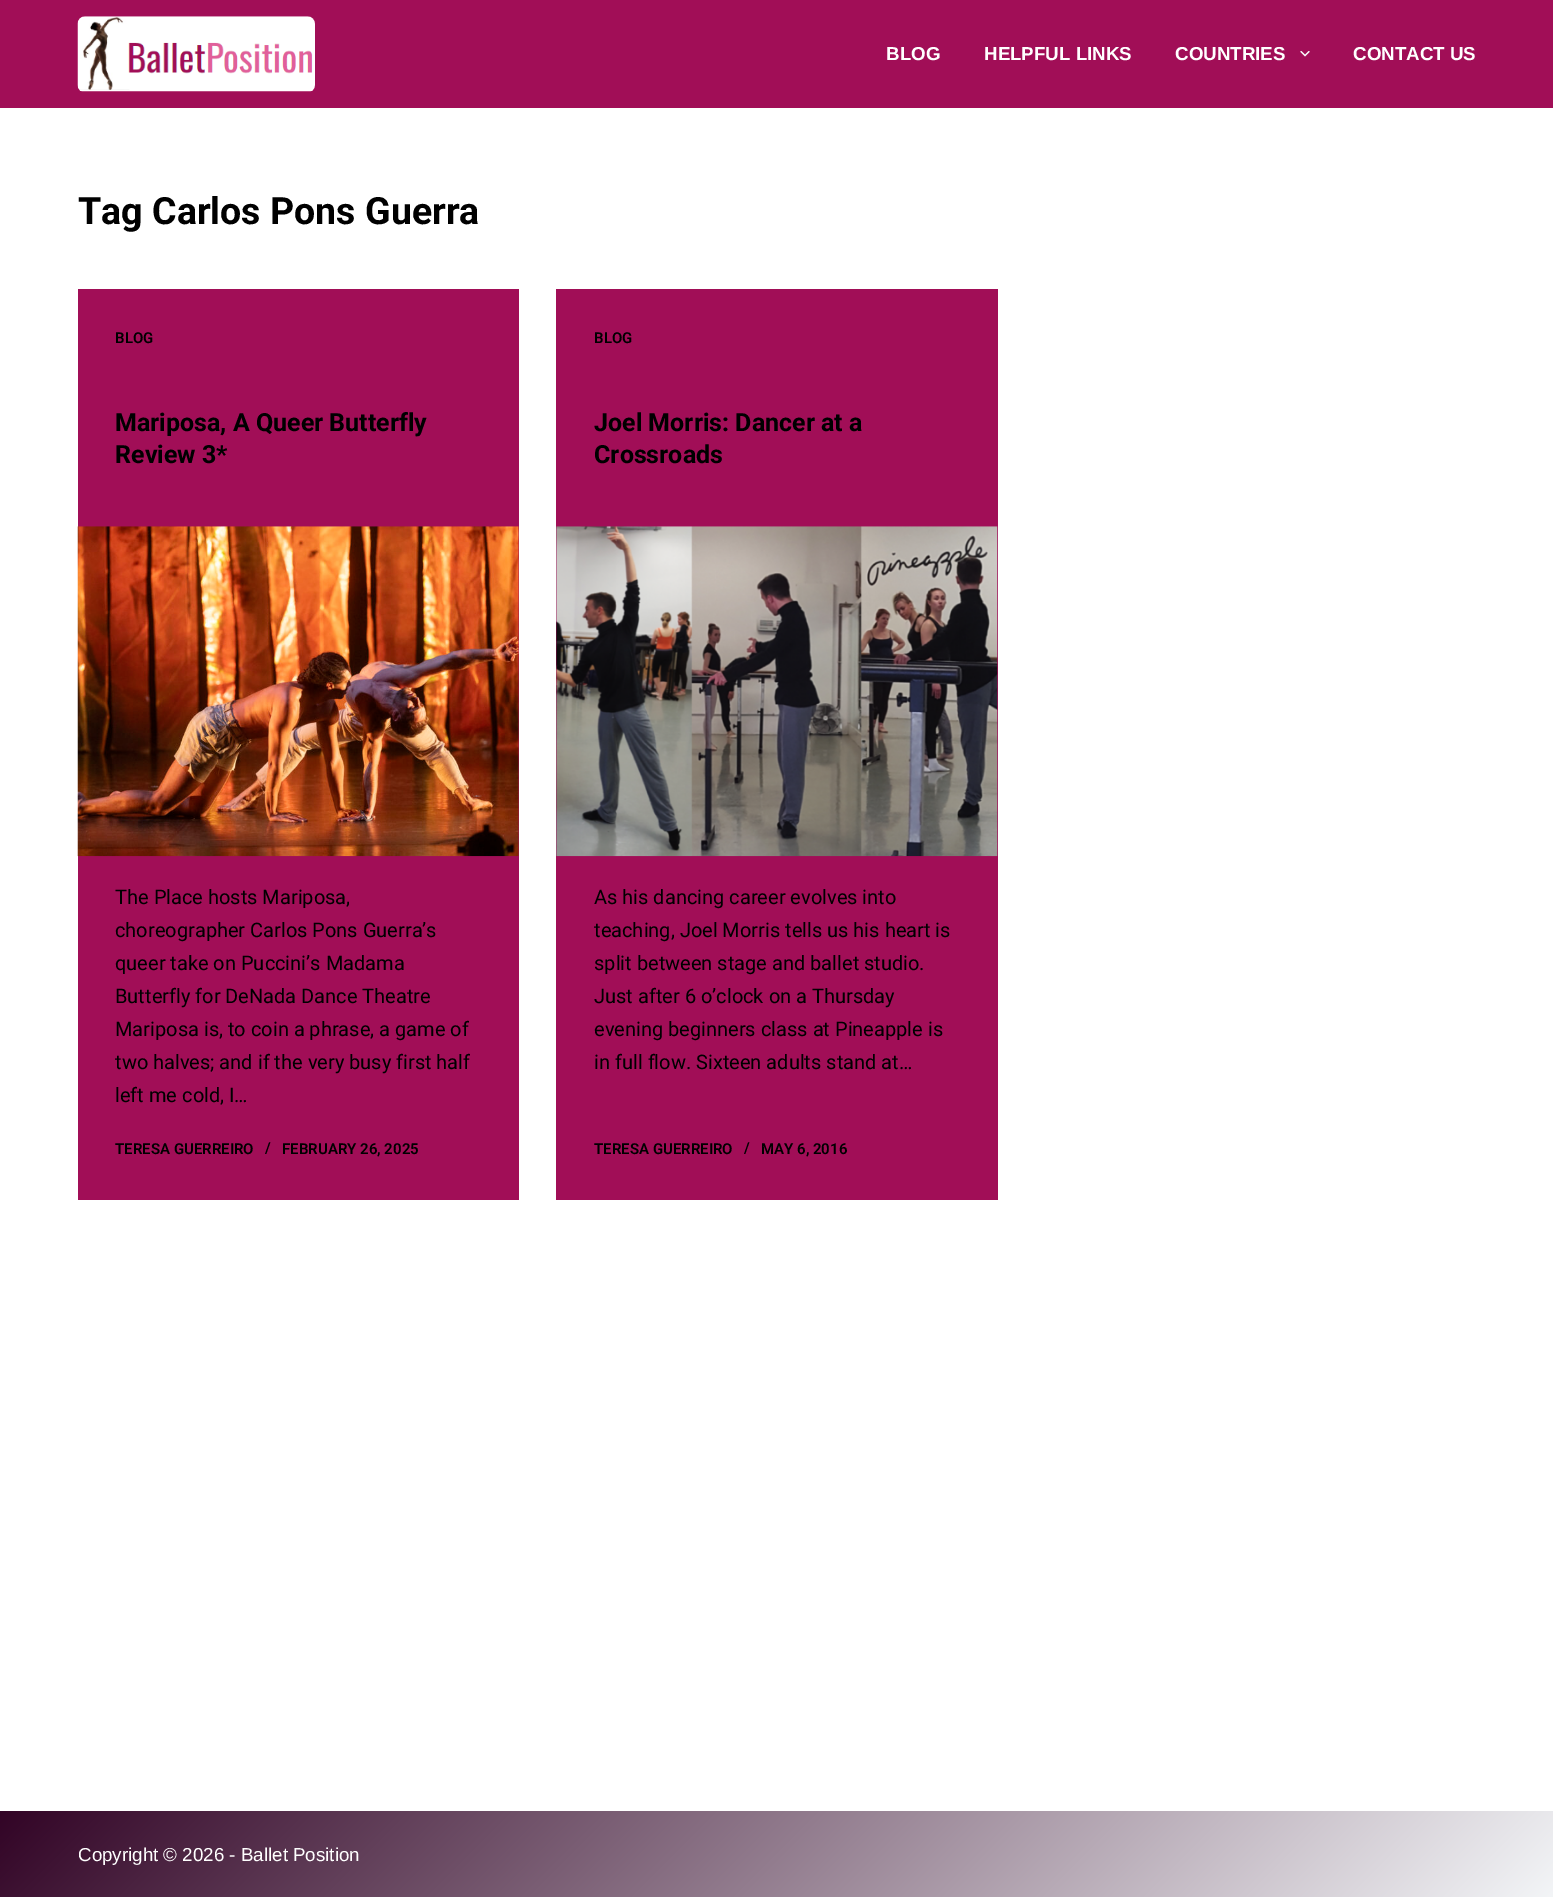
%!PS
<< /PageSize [1553 1897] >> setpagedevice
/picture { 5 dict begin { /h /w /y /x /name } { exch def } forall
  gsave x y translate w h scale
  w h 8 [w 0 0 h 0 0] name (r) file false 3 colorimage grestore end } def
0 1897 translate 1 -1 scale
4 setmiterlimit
1 setgray
0 0 1553 1897 rectfill
0.631 0.055 0.341 setrgbcolor
0 0 1553 108 rectfill
(img1.rgb) 77 16 238 76 picture
/LiberationSans-Bold [18.75 0 0 -18.75 0 0] selectfont
1 setgray
886 60 moveto (BLOG) show
984 60 moveto (HELPFUL LINKS) show
1175 60 moveto (COUNTRIES) show
(img2.rgb) 1300 51 10 6 picture
1353 60 moveto (CONTACT US) show
/Roboto-Bold [37.5 0 0 -37.5 0 0] selectfont
0 setgray
78 224 moveto (Tag Carlos Pons Guerra) show
0.631 0.055 0.341 setrgbcolor
78 289 441 911 rectfill
/Roboto-SemiBold [15 0 0 -15 0 0] selectfont
0 setgray
115 343 moveto (BLOG) show
/Roboto-Bold [25 0 0 -25 0 0] selectfont
115 431 moveto (Mariposa, A Queer Butterfly) show
115 463 moveto (Review 3*) show
(img3.rgb) 77 526 442 331 picture
/Roboto-Regular [20 0 0 -20 0 0] selectfont
115 904 moveto (The Place hosts Mariposa,) show
115 937 moveto (choreographer Carlos Pons Guerra’s) show
115 970 moveto (queer take on Puccini’s Madama) show
115 1003 moveto (Butterfly for DeNada Dance Theatre) show
115 1036 moveto (Mariposa is, to coin a phrase, a game of) show
115 1069 moveto (two halves; and if the very busy first half) show
115 1102 moveto (left me cold, I…) show
/Roboto-SemiBold [15 0 0 -15 0 0] selectfont
115 1154 moveto (TERESA GUERREIRO) show
265 1153 moveto (/) show
282 1154 moveto (FEBRUARY 26, 2025) show
0.631 0.055 0.341 setrgbcolor
556 289 442 911 rectfill
0 setgray
594 343 moveto (BLOG) show
/Roboto-Bold [25 0 0 -25 0 0] selectfont
594 431 moveto (Joel Morris: Dancer at a) show
594 463 moveto (Crossroads) show
(img4.rgb) 556 526 442 331 picture
/Roboto-Regular [20 0 0 -20 0 0] selectfont
594 904 moveto (As his dancing career evolves into) show
594 937 moveto (teaching, Joel Morris tells us his heart is) show
594 970 moveto (split between stage and ballet studio.) show
594 1003 moveto (Just after 6 o’clock on a Thursday) show
594 1036 moveto (evening beginners class at Pineapple is) show
594 1069 moveto (in full flow. Sixteen adults stand at…) show
/Roboto-SemiBold [15 0 0 -15 0 0] selectfont
594 1154 moveto (TERESA GUERREIRO) show
744 1153 moveto (/) show
761 1154 moveto (MAY 6, 2016) show
gsave newpath 0 1811 moveto 1553 1811 lineto 1553 1897 lineto 0 1897 lineto closepath clip newpath
<< /ShadingType 2 /ColorSpace /DeviceRGB /Coords [367 1444 1187 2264] /Extend [true true] /Function << /FunctionType 2 /Domain [0 1] /C0 [0.196 0.016 0.149] /C1 [0.953 0.961 0.969] /N 1 >> >> shfill grestore
/LiberationSans-Regular [18.75 0 0 -18.75 0 0] selectfont
1 setgray
78 1861 moveto (Copyright © 2026 - Ballet Position) show
showpage
